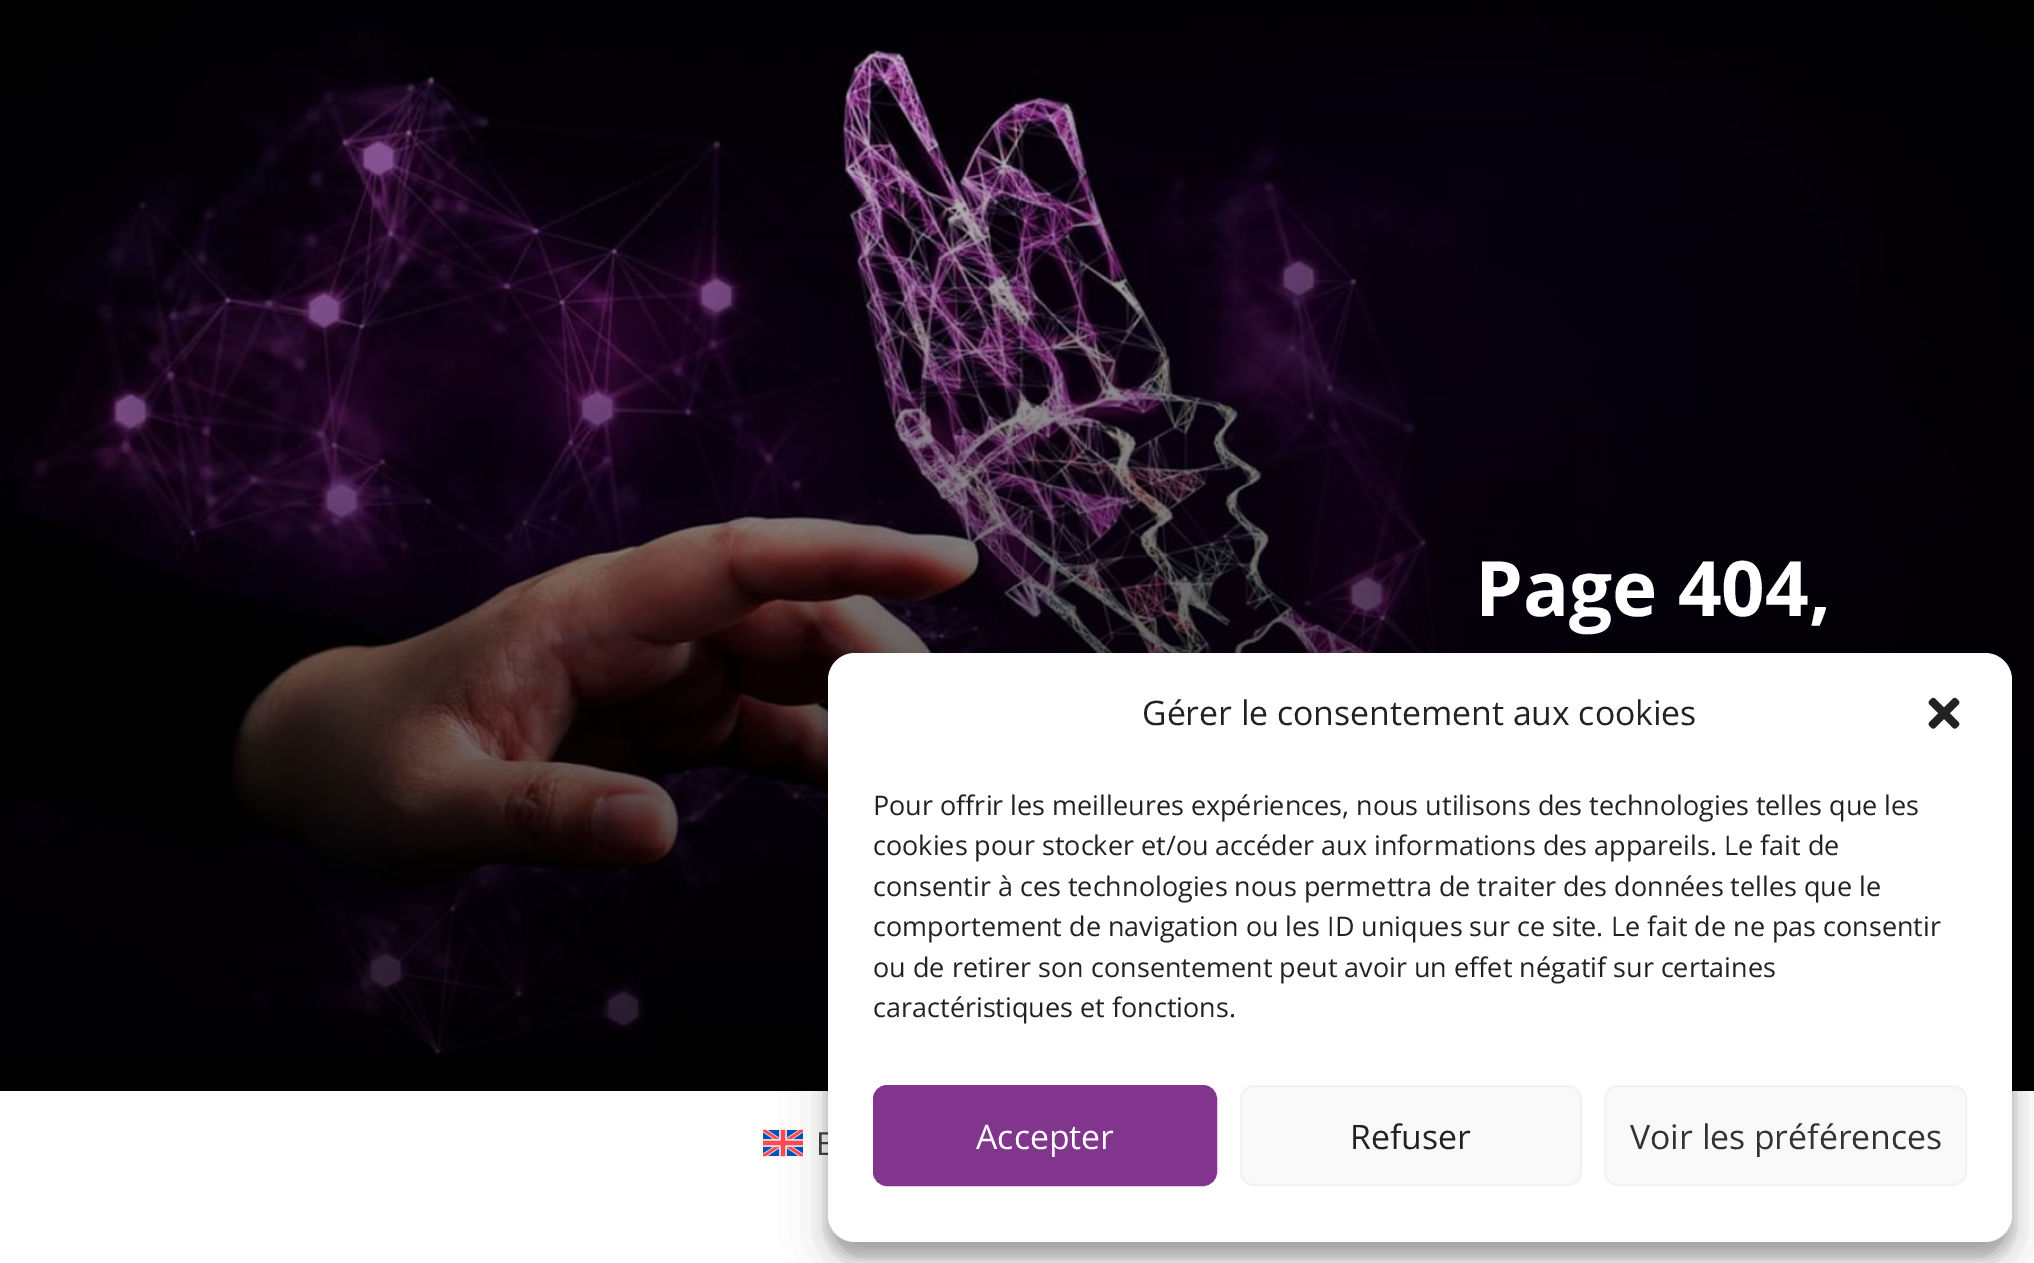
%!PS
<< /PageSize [2034 1263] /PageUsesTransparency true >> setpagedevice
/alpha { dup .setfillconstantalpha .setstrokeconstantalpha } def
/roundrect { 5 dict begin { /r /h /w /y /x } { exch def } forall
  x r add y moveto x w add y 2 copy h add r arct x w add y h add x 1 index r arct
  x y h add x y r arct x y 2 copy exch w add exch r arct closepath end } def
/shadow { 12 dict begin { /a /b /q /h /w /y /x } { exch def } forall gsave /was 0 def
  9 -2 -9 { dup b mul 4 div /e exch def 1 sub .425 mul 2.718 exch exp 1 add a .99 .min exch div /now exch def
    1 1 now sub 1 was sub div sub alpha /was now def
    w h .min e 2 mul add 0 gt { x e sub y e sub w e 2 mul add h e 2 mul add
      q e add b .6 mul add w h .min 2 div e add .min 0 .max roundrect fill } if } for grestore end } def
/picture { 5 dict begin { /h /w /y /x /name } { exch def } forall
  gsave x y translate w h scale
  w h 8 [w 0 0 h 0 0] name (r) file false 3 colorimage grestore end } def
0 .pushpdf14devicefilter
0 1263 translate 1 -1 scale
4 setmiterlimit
1 setgray
0 0 2034 1263 rectfill
0 setgray
0 1056 2034 35 rectfill
(img1.rgb) 0 0 2034 1056 picture
/OpenSans-Bold [76.5 0 0 -76.5 0 0] selectfont
1 setgray
1475 616 moveto (Page 404,) show
(img2.rgb) 763 1129 40 28 picture
/OpenSans-Regular [32 0 0 -32 0 0] selectfont
0.267 setgray
816 1155 moveto (E) show
0 setgray
828 666 1184 590 27 7 0.23 shadow
828 675 1184 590 27 22.5 0.19 shadow
1 setgray
828 653 1184 589 27 roundrect fill
/OpenSans-Regular [33.75 0 0 -33.75 0 0] selectfont
0.133 setgray
1142 725 moveto (Gérer le consentement aux cookies) show
(img3.rgb) 1928 697 32 32 picture
/OpenSans-Regular [27 0 0 -27 0 0] selectfont
873 815 moveto (Pour offrir les meilleures expériences, nous utilisons des technologies telles que les) show
873 855 moveto (cookies pour stocker et/ou accéder aux informations des appareils. Le fait de) show
873 896 moveto (consentir à ces technologies nous permettra de traiter des données telles que le) show
873 936 moveto (comportement de navigation ou les ID uniques sur ce site. Le fait de ne pas consentir) show
873 977 moveto (ou de retirer son consentement peut avoir un effet négatif sur certaines) show
873 1017 moveto (caractéristiques et fonctions.) show
0.51 0.208 0.549 setrgbcolor
874 1086 342 99 13 roundrect gsave fill grestore
2 setlinewidth
stroke
/OpenSans-Regular [33.75 0 0 -33.75 0 0] selectfont
1 setgray
976 1149 moveto (Accepter) show
0.976 setgray
1241 1086 340 99 13 roundrect gsave fill grestore
0.949 setgray
stroke
0.133 setgray
1350 1149 moveto (Refuser) show
0.976 setgray
1605 1086 361 99 13 roundrect gsave fill grestore
0.949 setgray
stroke
0.2 setgray
1630 1149 moveto (Voir les préférences) show
.poppdf14devicefilter showpage
